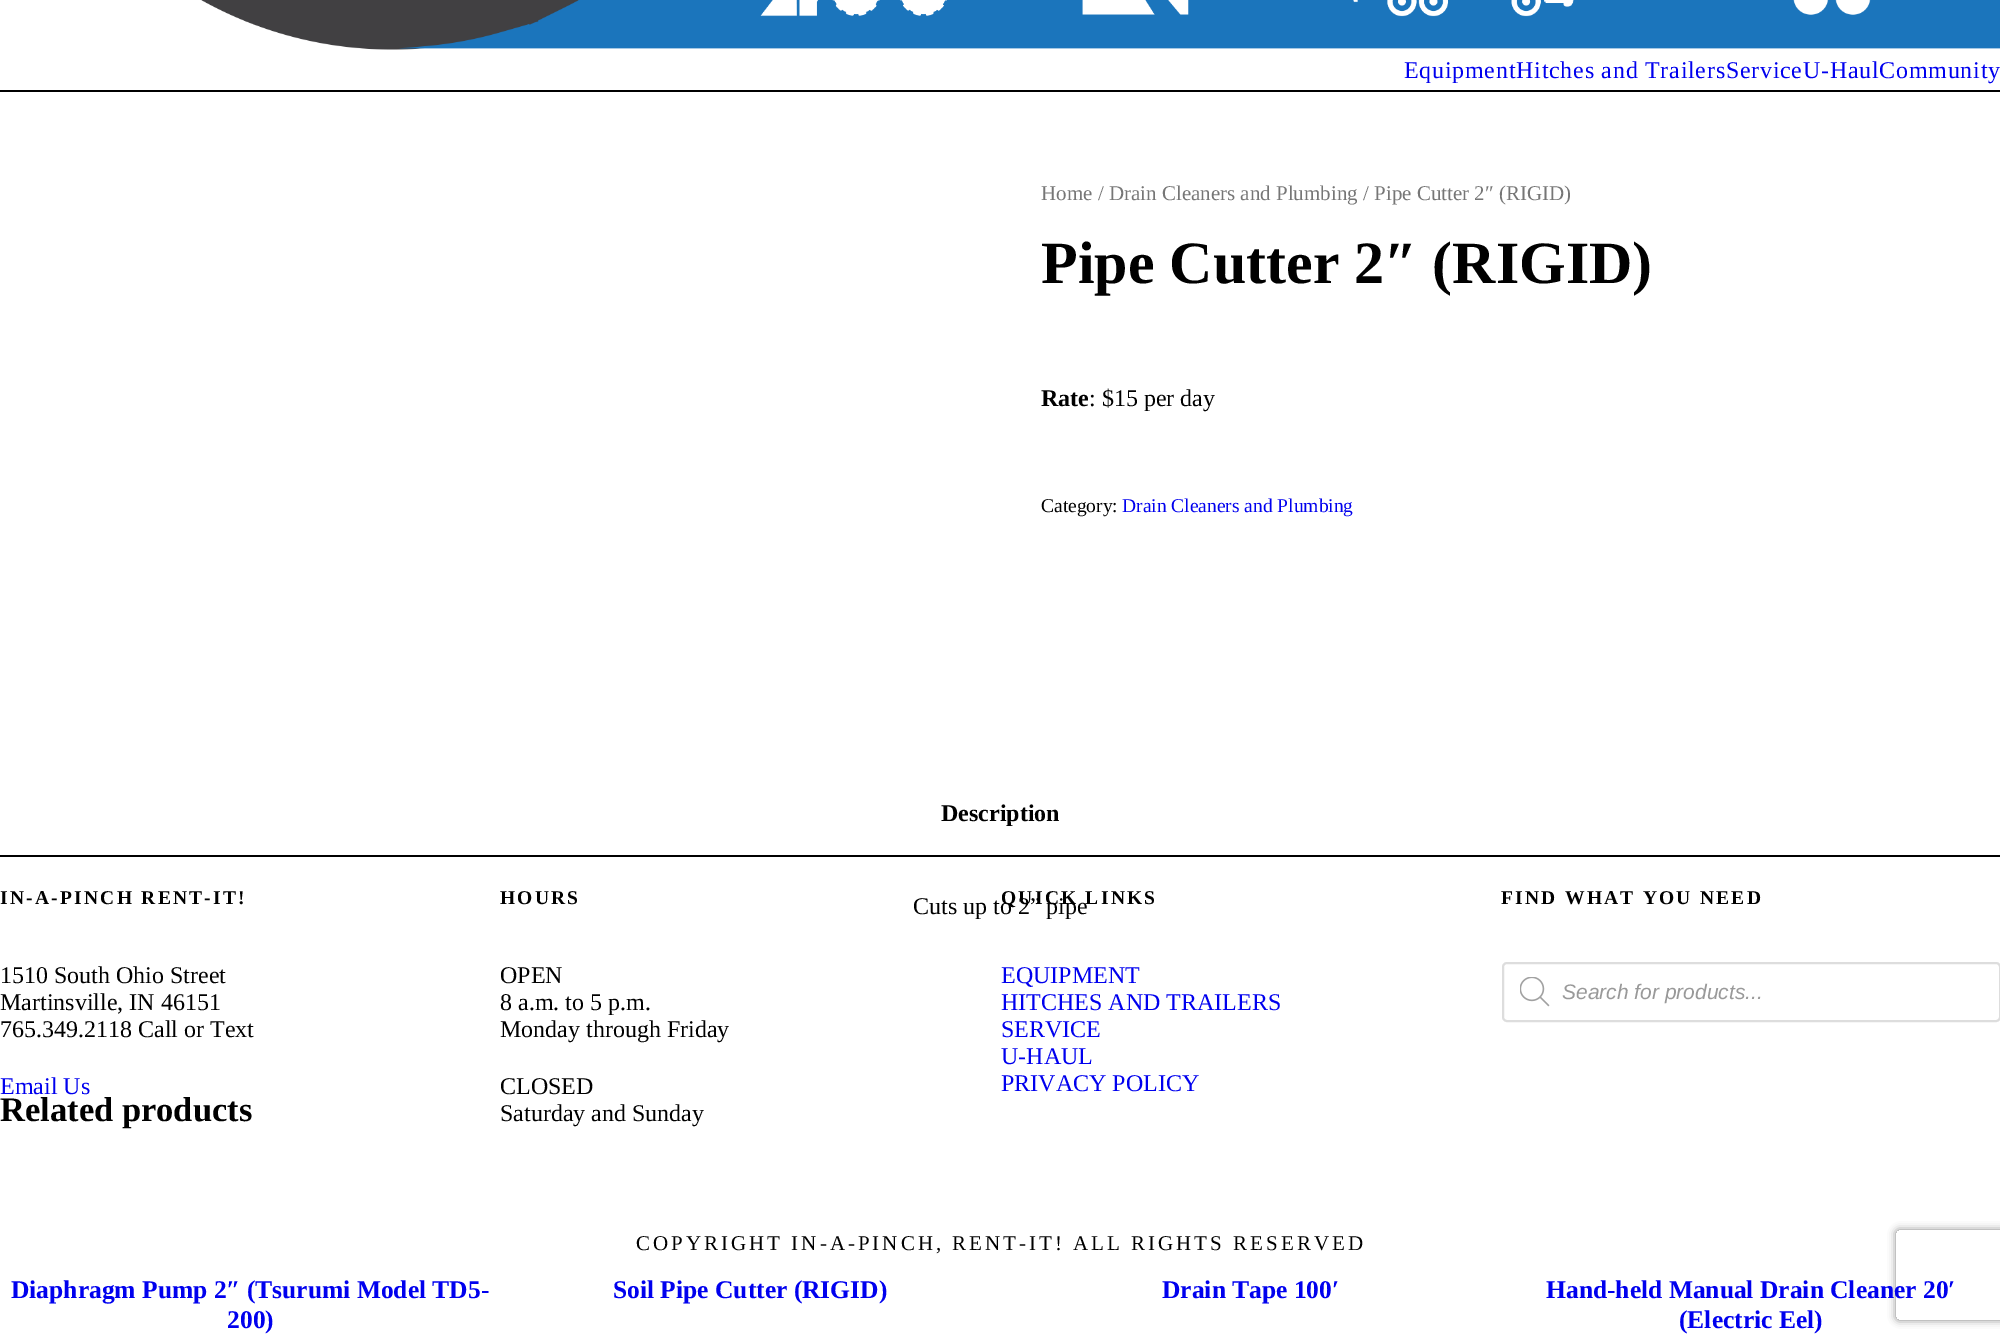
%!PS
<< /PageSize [2000 1340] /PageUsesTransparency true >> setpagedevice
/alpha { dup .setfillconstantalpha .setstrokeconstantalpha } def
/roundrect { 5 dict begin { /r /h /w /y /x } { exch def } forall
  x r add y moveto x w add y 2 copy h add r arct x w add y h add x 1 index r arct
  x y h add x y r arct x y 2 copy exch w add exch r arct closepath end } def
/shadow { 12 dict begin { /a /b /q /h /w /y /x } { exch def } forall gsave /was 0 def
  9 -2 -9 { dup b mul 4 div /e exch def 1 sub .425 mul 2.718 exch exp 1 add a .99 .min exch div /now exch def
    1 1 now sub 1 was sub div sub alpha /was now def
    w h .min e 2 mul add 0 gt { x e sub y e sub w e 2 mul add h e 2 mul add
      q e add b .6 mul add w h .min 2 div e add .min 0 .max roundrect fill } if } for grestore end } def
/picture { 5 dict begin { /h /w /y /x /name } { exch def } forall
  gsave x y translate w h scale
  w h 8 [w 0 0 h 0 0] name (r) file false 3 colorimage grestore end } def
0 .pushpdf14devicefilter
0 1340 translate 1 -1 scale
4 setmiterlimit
1 setgray
0 0 2000 1340 rectfill
(img1.rgb) 201 0 1799 50 picture
/LiberationSerif-Regular [24 0 0 -24 0 0] selectfont
0 0 0.933 setrgbcolor
1404 78 moveto 0.75 0 (EquipmentHitches and TrailersServiceU-HaulCommunity) ashow
0 setgray
0 90 2000 2 rectfill
/LiberationSerif-Regular [21 0 0 -21 0 0] selectfont
0.463 setgray
1041 200 moveto (Home / Drain Cleaners and Plumbing / Pipe Cutter 2″ \(RIGID\)) show
/LiberationSerif-Bold [60 0 0 -60 0 0] selectfont
0 setgray
1041 283 moveto (Pipe Cutter 2″ \(RIGID\)) show
/LiberationSerif-Bold [24 0 0 -24 0 0] selectfont
1041 406 moveto (Rate) show
/LiberationSerif-Regular [24 0 0 -24 0 0] selectfont
1089 406 moveto (: $15 per day) show
/LiberationSerif-Regular [19.5 0 0 -19.5 0 0] selectfont
1041 512 moveto (Category:) show
0 0 0.933 setrgbcolor
1122 512 moveto (Drain Cleaners and Plumbing) show
0 setgray
0 855 2000 2 rectfill
/LiberationSerif-Bold [24 0 0 -24 0 0] selectfont
941 821 moveto (Description) show
/LiberationSerif-Bold [19.5 0 0 -19.5 0 0] selectfont
1001 904 moveto 2.25 0 (QUICK LINKS) ashow
/LiberationSerif-Regular [24 0 0 -24 0 0] selectfont
913 914 moveto (Cuts up to 2” pipe) show
/LiberationSerif-Bold [34.5 0 0 -34.5 0 0] selectfont
0 1121 moveto (Related products) show
/LiberationSerif-Bold [25.5 0 0 -25.5 0 0] selectfont
0 0 0.933 setrgbcolor
11 1298 moveto (Diaphragm Pump 2″ \(Tsurumi Model TD5-) show
227 1328 moveto (200\)) show
613 1298 moveto (Soil Pipe Cutter \(RIGID\)) show
1162 1298 moveto (Drain Tape 100′) show
gsave
newpath 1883 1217 moveto 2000 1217 lineto 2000 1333 lineto 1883 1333 lineto closepath 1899 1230 moveto 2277 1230 lineto 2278.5 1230 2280 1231.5 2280 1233 curveto 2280 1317 lineto 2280 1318.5 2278.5 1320 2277 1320 curveto 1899 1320 lineto 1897.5 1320 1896 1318.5 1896 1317 curveto 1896 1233 lineto 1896 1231.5 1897.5 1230 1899 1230 curveto closepath eoclip newpath
0.502 setgray
1896 1230 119 90 3 4 1 shadow
grestore
1546 1298 moveto (Hand-held Manual Drain Cleaner 20′) show
1679 1328 moveto (\(Electric Eel\)) show
/LiberationSerif-Bold [19.5 0 0 -19.5 0 0] selectfont
0 setgray
0 904 moveto 2.25 0 (IN-A-PINCH RENT-IT!) ashow
/LiberationSerif-Regular [24 0 0 -24 0 0] selectfont
0 983 moveto (1510 South Ohio Street) show
0 1010 moveto (Martinsville, IN 46151) show
0 1037 moveto (765.349.2118 Call or Text) show
0 0 0.933 setrgbcolor
0 1094 moveto (Email Us) show
/LiberationSerif-Bold [19.5 0 0 -19.5 0 0] selectfont
0 setgray
500 904 moveto 2.25 0 (HOURS) ashow
/LiberationSerif-Regular [24 0 0 -24 0 0] selectfont
500 983 moveto (OPEN) show
500 1010 moveto (8 a.m. to 5 p.m.) show
500 1037 moveto (Monday through Friday) show
500 1094 moveto (CLOSED) show
500 1121 moveto (Saturday and Sunday) show
0 0 0.933 setrgbcolor
1001 983 moveto (EQUIPMENT) show
1001 1010 moveto (HITCHES AND TRAILERS) show
1001 1037 moveto (SERVICE) show
1001 1064 moveto (U-HAUL) show
1001 1091 moveto (PRIVACY POLICY) show
/LiberationSerif-Bold [19.5 0 0 -19.5 0 0] selectfont
0 setgray
1501 904 moveto 2.25 0 (FIND WHAT YOU NEED) ashow
0.867 setgray
2 setlinewidth
1503 963 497 58 4 roundrect stroke
(img2.rgb) 1520 977 30 30 picture
/LiberationSans-Italic [21 0 0 -21 0 0] selectfont
0.6 setgray
1562 999 moveto (Search for products...) show
/LiberationSerif-Regular [21 0 0 -21 0 0] selectfont
0 setgray
636 1250 moveto 3 0 (COPYRIGHT IN-A-PINCH, RENT-IT! ALL RIGHTS RESERVED) ashow
.poppdf14devicefilter showpage
